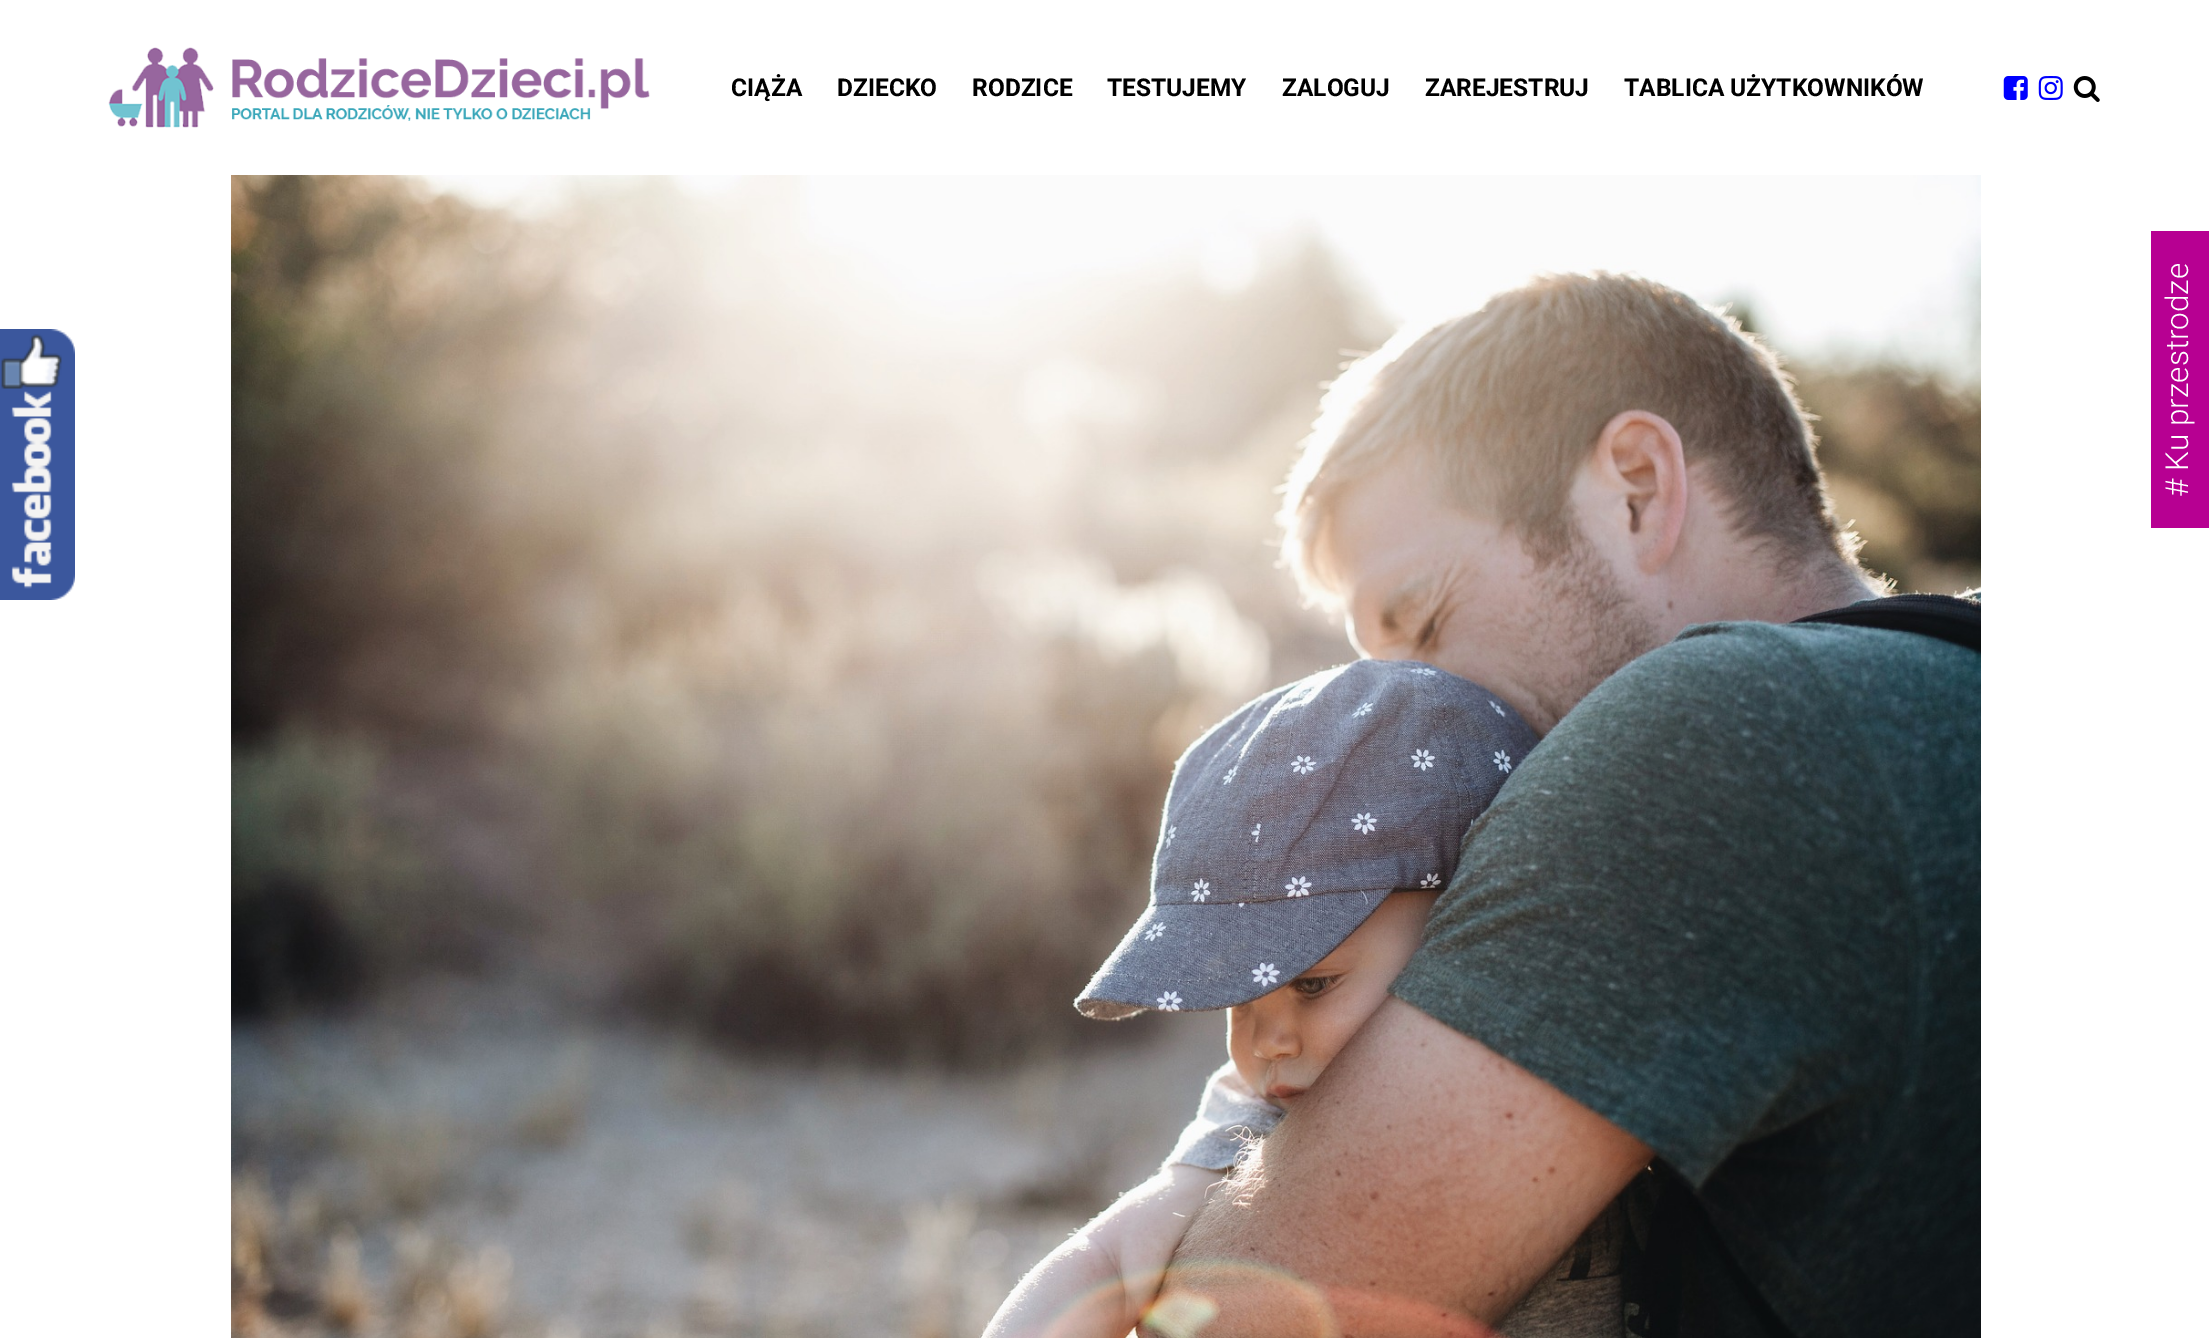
%!PS
<< /PageSize [2209 1338] >> setpagedevice
/picture { 5 dict begin { /h /w /y /x /name } { exch def } forall
  gsave x y translate w h scale
  w h 8 [w 0 0 h 0 0] name (r) file false 3 colorimage grestore end } def
0 1338 translate 1 -1 scale
4 setmiterlimit
1 setgray
0 0 2209 1338 rectfill
(img1.rgb) 108 47 542 81 picture
/Roboto-Bold [24.5 0 0 -24.5 0 0] selectfont
0 setgray
731 96 moveto (CIĄŻA) show
837 96 moveto (DZIECKO) show
972 96 moveto (RODZICE) show
1107 96 moveto (TESTUJEMY) show
1282 96 moveto (ZALOGUJ) show
1425 96 moveto (ZAREJESTRUJ) show
1624 96 moveto (TABLICA UŻYTKOWNIKÓW) show
(img2.rgb) 2003 76 25 24 picture
(img3.rgb) 2038 76 25 24 picture
(img4.rgb) 2073 76 27 26 picture
(img5.rgb) 231 175 1750 1163 picture
(img6.rgb) 0 329 75 271 picture
0.718 0 0.573 setrgbcolor
2151 231 58 297 rectfill
/Roboto-Light [31.5 0 0 -31.5 0 0] selectfont
1 setgray
gsave 2188 497 translate -90 rotate 0 0 moveto (# Ku przestrodze) show grestore
showpage
